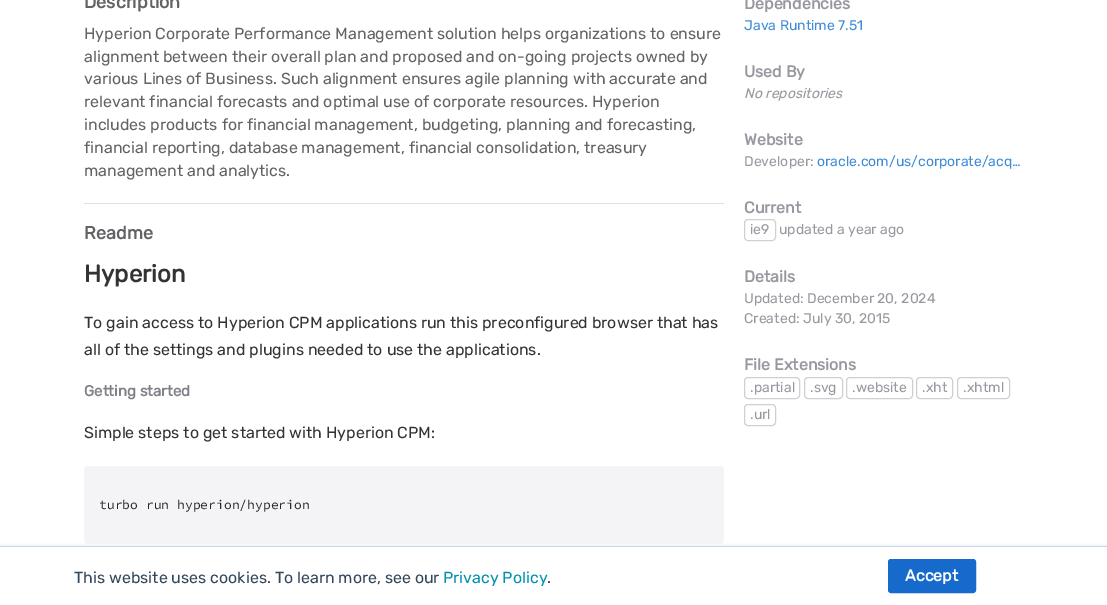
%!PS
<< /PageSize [1107 605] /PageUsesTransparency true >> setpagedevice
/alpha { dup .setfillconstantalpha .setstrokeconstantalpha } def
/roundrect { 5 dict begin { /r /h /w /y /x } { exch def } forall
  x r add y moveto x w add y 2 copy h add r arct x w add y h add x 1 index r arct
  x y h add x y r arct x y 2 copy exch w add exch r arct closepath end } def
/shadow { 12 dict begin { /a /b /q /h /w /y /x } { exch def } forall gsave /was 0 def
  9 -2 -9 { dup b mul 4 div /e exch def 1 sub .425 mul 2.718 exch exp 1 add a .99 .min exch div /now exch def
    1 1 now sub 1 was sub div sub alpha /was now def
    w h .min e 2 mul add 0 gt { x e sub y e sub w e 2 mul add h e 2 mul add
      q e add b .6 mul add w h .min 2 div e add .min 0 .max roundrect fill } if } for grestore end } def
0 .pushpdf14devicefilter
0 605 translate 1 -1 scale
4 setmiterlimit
1 setgray
0 0 1107 605 rectfill
/Rubik-Bold [18 0 0 -18 0 0] selectfont
0.38 0.388 0.4 setrgbcolor
84 8 moveto (Description) show
/Rubik-Light [16 0 0 -16 0 0] selectfont
84 39 moveto (Hyperion Corporate Performance Management solution helps organizations to ensure) show
84 62 moveto (alignment between their overall plan and proposed and on-going projects owned by) show
84 84 moveto (various Lines of Business. Such alignment ensures agile planning with accurate and) show
84 107 moveto (relevant financial forecasts and optimal use of corporate resources. Hyperion) show
84 130 moveto (includes products for financial management, budgeting, planning and forecasting,) show
84 153 moveto (financial reporting, database management, financial consolidation, treasury) show
84 176 moveto (management and analytics.) show
0.882 0.882 0.898 setrgbcolor
84 203 640 1 rectfill
/Rubik-Bold [18 0 0 -18 0 0] selectfont
0.38 0.388 0.4 setrgbcolor
84 239 moveto (Readme) show
/Rubik-Bold [24 0 0 -24 0 0] selectfont
0.2 setgray
84 282 moveto (Hyperion) show
/Rubik-Light [16 0 0 -16 0 0] selectfont
84 328 moveto (To gain access to Hyperion CPM applications run this preconfigured browser that has) show
84 355 moveto (all of the settings and plugins needed to use the applications.) show
/Rubik-Bold [15 0 0 -15 0 0] selectfont
0.502 0.502 0.537 setrgbcolor
84 396 moveto (Getting started) show
/Rubik-Light [16 0 0 -16 0 0] selectfont
0.2 setgray
84 438 moveto (Simple steps to get started with Hyperion CPM:) show
0.957 0.957 0.965 setrgbcolor
84 466 640 78 4 roundrect fill
/SourceCodePro-Regular [13 0 0 -13 0 0] selectfont
0.133 0.153 0.165 setrgbcolor
99 509 moveto (turbo run hyperion/hyperion) show
/Rubik-Bold [16 0 0 -16 0 0] selectfont
0.596 0.596 0.627 setrgbcolor
744 9 moveto (Dependencies) show
/Rubik-Light [14 0 0 -14 0 0] selectfont
0.251 0.545 0.839 setrgbcolor
744 30 moveto (Java Runtime 7.51) show
/Rubik-Bold [16 0 0 -16 0 0] selectfont
0.596 0.596 0.627 setrgbcolor
744 77 moveto (Used By) show
/Rubik-LightItalic [14 0 0 -14 0 0] selectfont
744 98 moveto (No repositories) show
/Rubik-Bold [16 0 0 -16 0 0] selectfont
744 145 moveto (Website) show
/Rubik-Light [14 0 0 -14 0 0] selectfont
744 166 moveto (Developer:) show
0.251 0.545 0.839 setrgbcolor
817 166 moveto (oracle.com/us/corporate/acq…) show
/Rubik-Bold [16 0 0 -16 0 0] selectfont
0.596 0.596 0.627 setrgbcolor
744 213 moveto (Current) show
0.816 setgray
744.5 219.5 31 21 3.5 roundrect stroke
/Rubik-Light [14 0 0 -14 0 0] selectfont
0.596 0.596 0.627 setrgbcolor
750 234 moveto (ie9) show
779 234 moveto (updated a year ago) show
/Rubik-Bold [16 0 0 -16 0 0] selectfont
744 282 moveto (Details) show
/Rubik-Light [14 0 0 -14 0 0] selectfont
744 303 moveto (Updated: December 20, 2024) show
744 323 moveto (Created: July 30, 2015) show
/Rubik-Bold [16 0 0 -16 0 0] selectfont
744 370 moveto (File Extensions) show
0.816 setgray
744.5 377.5 55 21 3.5 roundrect stroke
/Rubik-Light [14 0 0 -14 0 0] selectfont
0.596 0.596 0.627 setrgbcolor
750 392 moveto (.partial) show
0.816 setgray
804.5 377.5 38 21 3.5 roundrect stroke
0.596 0.596 0.627 setrgbcolor
810 392 moveto (.svg) show
0.816 setgray
846.5 377.5 66 21 3.5 roundrect stroke
0.596 0.596 0.627 setrgbcolor
852 392 moveto (.website) show
0.816 setgray
916.5 377.5 36 21 3.5 roundrect stroke
0.596 0.596 0.627 setrgbcolor
922 392 moveto (.xht) show
0.816 setgray
957.5 377.5 52 21 3.5 roundrect stroke
0.596 0.596 0.627 setrgbcolor
963 392 moveto (.xhtml) show
0.816 setgray
744.5 404.5 31 21 3.5 roundrect stroke
0.596 0.596 0.627 setrgbcolor
750 419 moveto (.url) show
0.918 0.941 0.965 setrgbcolor
0 545 1107 59 0 1.5 1 shadow
1 setgray
0 547 1107 58 rectfill
0.796 0.839 0.886 setrgbcolor
0 546 1107 1 rectfill
/Rubik-Light [16 0 0 -16 0 0] selectfont
0.2 0.278 0.357 setrgbcolor
74 583 moveto (This website uses cookies. To learn more, see our) show
0 0.569 0.682 setrgbcolor
443 583 moveto (Privacy Policy) show
0.2 0.278 0.357 setrgbcolor
547 583 moveto (.) show
0.086 0.416 0.8 setrgbcolor
888.5 559.5 87 33 2.5 roundrect gsave fill grestore
stroke
/Rubik-Bold [16 0 0 -16 0 0] selectfont
1 setgray
905 581 moveto (Accept) show
.poppdf14devicefilter showpage
